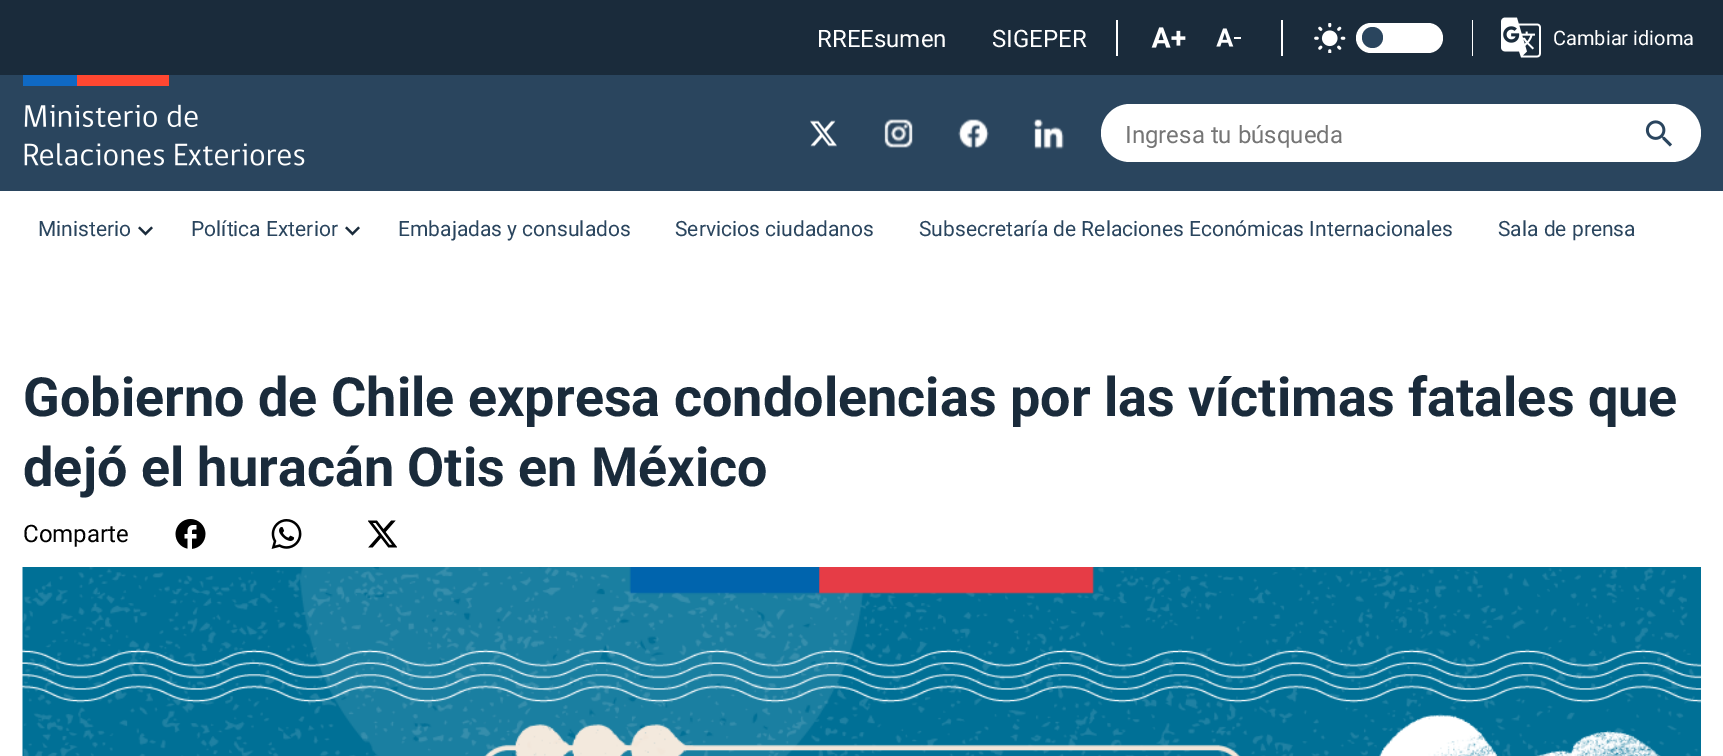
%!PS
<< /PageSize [1723 756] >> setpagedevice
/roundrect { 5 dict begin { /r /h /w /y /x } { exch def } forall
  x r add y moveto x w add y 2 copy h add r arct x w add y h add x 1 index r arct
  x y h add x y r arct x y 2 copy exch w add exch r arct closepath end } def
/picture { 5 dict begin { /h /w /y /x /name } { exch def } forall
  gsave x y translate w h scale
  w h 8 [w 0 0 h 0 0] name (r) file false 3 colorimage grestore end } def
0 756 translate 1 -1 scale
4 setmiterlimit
1 setgray
0 0 1723 756 rectfill
0.102 0.169 0.231 setrgbcolor
0 0 1723 75 rectfill
/Roboto-Regular [24 0 0 -24 0 0] selectfont
1 setgray
817 47 moveto (RREEsumen) show
992 47 moveto (SIGEPER) show
1116 20 2 36 rectfill
(img1.rgb) 1151 27 35 21 picture
(img2.rgb) 1216 28 25 19 picture
1281 20 2 36 rectfill
1356 23 87 30 15 roundrect fill
(img3.rgb) 1314 23 32 30 picture
0.165 0.271 0.369 setrgbcolor
newpath 1372.5 37.5 10.5 0 360 arc closepath fill
1 setgray
1472 20 1 36 rectfill
(img4.rgb) 1501 17 40 41 picture
/Roboto-Regular [20 0 0 -20 0 0] selectfont
1553 45 moveto (Cambiar idioma) show
0.165 0.271 0.369 setrgbcolor
0 75 1723 116 rectfill
(img5.rgb) 23 75 282 91 picture
(img6.rgb) 810 120 27 27 picture
(img7.rgb) 884 119 29 29 picture
(img8.rgb) 958 119 31 29 picture
(img9.rgb) 1033 119 31 31 picture
1 setgray
1101 104 600 58 29 roundrect fill
/Roboto-Regular [24 0 0 -24 0 0] selectfont
0.459 setgray
1125 143 moveto (Ingresa tu búsqueda) show
(img10.rgb) 1645 120 27 27 picture
(img11.rgb) 138 226 15 10 picture
/Roboto-Regular [21 0 0 -21 0 0] selectfont
0.165 0.271 0.369 setrgbcolor
38 236 moveto (Ministerio) show
(img11.rgb) 345 226 15 10 picture
191 236 moveto (Política Exterior) show
398 236 moveto (Embajadas y consulados) show
675 236 moveto (Servicios ciudadanos) show
919 236 moveto (Subsecretaría de Relaciones Económicas Internacionales) show
1498 236 moveto (Sala de prensa) show
/Roboto-Bold [54 0 0 -54 0 0] selectfont
0.102 0.169 0.231 setrgbcolor
23 416 moveto (Gobierno de Chile expresa condolencias por las víctimas fatales que) show
23 486 moveto (dejó el huracán Otis en México) show
/Roboto-Regular [24 0 0 -24 0 0] selectfont
0 setgray
23 542 moveto (Comparte) show
(img12.rgb) 175 519 31 30 picture
(img13.rgb) 271 519 31 30 picture
(img14.rgb) 368 520 29 28 picture
(img15.rgb) 22 567 1679 189 picture
showpage
